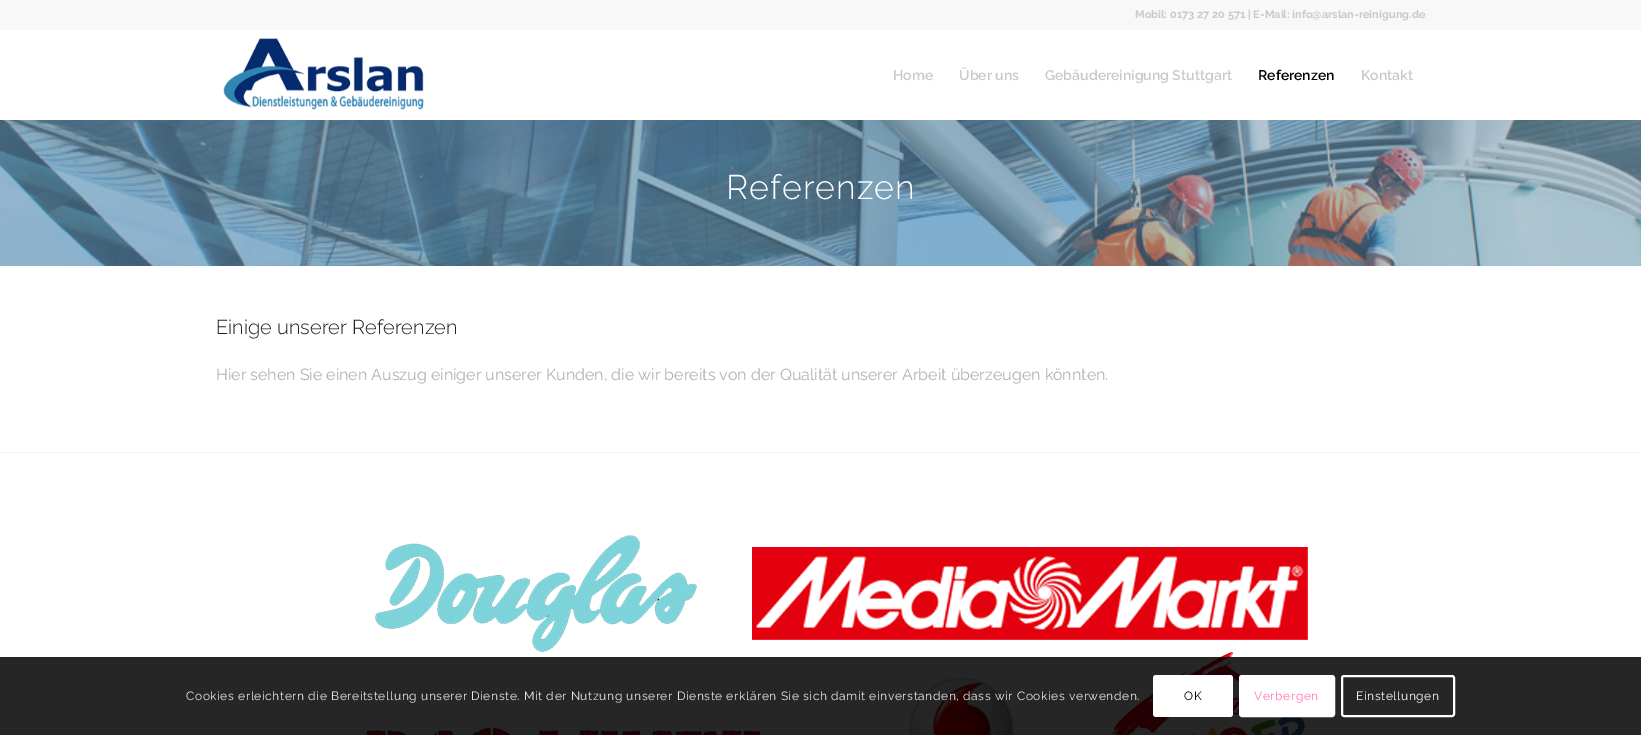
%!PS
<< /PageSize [1641 735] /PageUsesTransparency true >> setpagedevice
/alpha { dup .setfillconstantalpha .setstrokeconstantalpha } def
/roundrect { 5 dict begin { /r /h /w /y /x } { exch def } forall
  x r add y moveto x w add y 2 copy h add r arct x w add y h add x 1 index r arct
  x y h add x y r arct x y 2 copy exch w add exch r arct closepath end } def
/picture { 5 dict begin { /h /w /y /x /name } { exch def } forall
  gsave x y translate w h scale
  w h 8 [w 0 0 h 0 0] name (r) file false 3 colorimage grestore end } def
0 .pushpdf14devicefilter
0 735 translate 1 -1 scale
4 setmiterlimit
1 setgray
0 0 1641 735 rectfill
0.973 setgray
0 0 1641 30 rectfill
/Raleway-Bold [11 0 0 -11 0 0] selectfont
0.788 setgray
1135 18 moveto (Mobil: 0173 27 20 571 | E-Mail: info@arslan-reinigung.de) show
(img1.rgb) 223 38 201 72 picture
/Raleway-SemiBold [14 0 0 -14 0 0] selectfont
893 80 moveto (Home) show
959 80 moveto (Über uns) show
1045 80 moveto (Gebäudereinigung Stuttgart) show
0 setgray
1258 80 moveto (Referenzen) show
0.788 setgray
1361 80 moveto (Kontakt) show
(img2.rgb) 0 120 1641 146 picture
/Raleway-Light [34 0 0 -34 0 0] selectfont
1 setgray
726 199 moveto 1 0 (Referenzen) ashow
/Raleway-Light [20 0 0 -20 0 0] selectfont
0.133 setgray
216 334 moveto (Einige unserer Referenzen) show
/Raleway-Regular [16 0 0 -16 0 0] selectfont
0.69 setgray
216 380 moveto (Hier sehen Sie einen Auszug einiger unserer Kunden, die wir bereits von der Qualität unserer Arbeit überzeugen könnten.) show
0.949 setgray
0 452 1641 1 rectfill
(img3.rgb) 366 535 942 200 picture
0.85 alpha
0 setgray
0 657 1641 78 rectfill
/Raleway-Regular [12 0 0 -12 0 0] selectfont
1 alpha
0.914 setgray
186 700 moveto 0.6 0 (Cookies erleichtern die Bereitstellung unserer Dienste. Mit der Nutzung unserer Dienste erklären Sie sich damit einverstanden, dass wir Cookies verwenden.) ashow
1 setgray
1153 675 80 42 3 roundrect fill
0 setgray
1184 700 moveto 0.6 0 (OK) ashow
1 setgray
1240 676 94 40 2 roundrect gsave fill grestore
2 setlinewidth
stroke
1 0.459 0.71 setrgbcolor
1254 700 moveto 0.6 0 (Verbergen) ashow
1 setgray
1342 676 112 40 2 roundrect stroke
1356 700 moveto 0.6 0 (Einstellungen) ashow
.poppdf14devicefilter showpage
